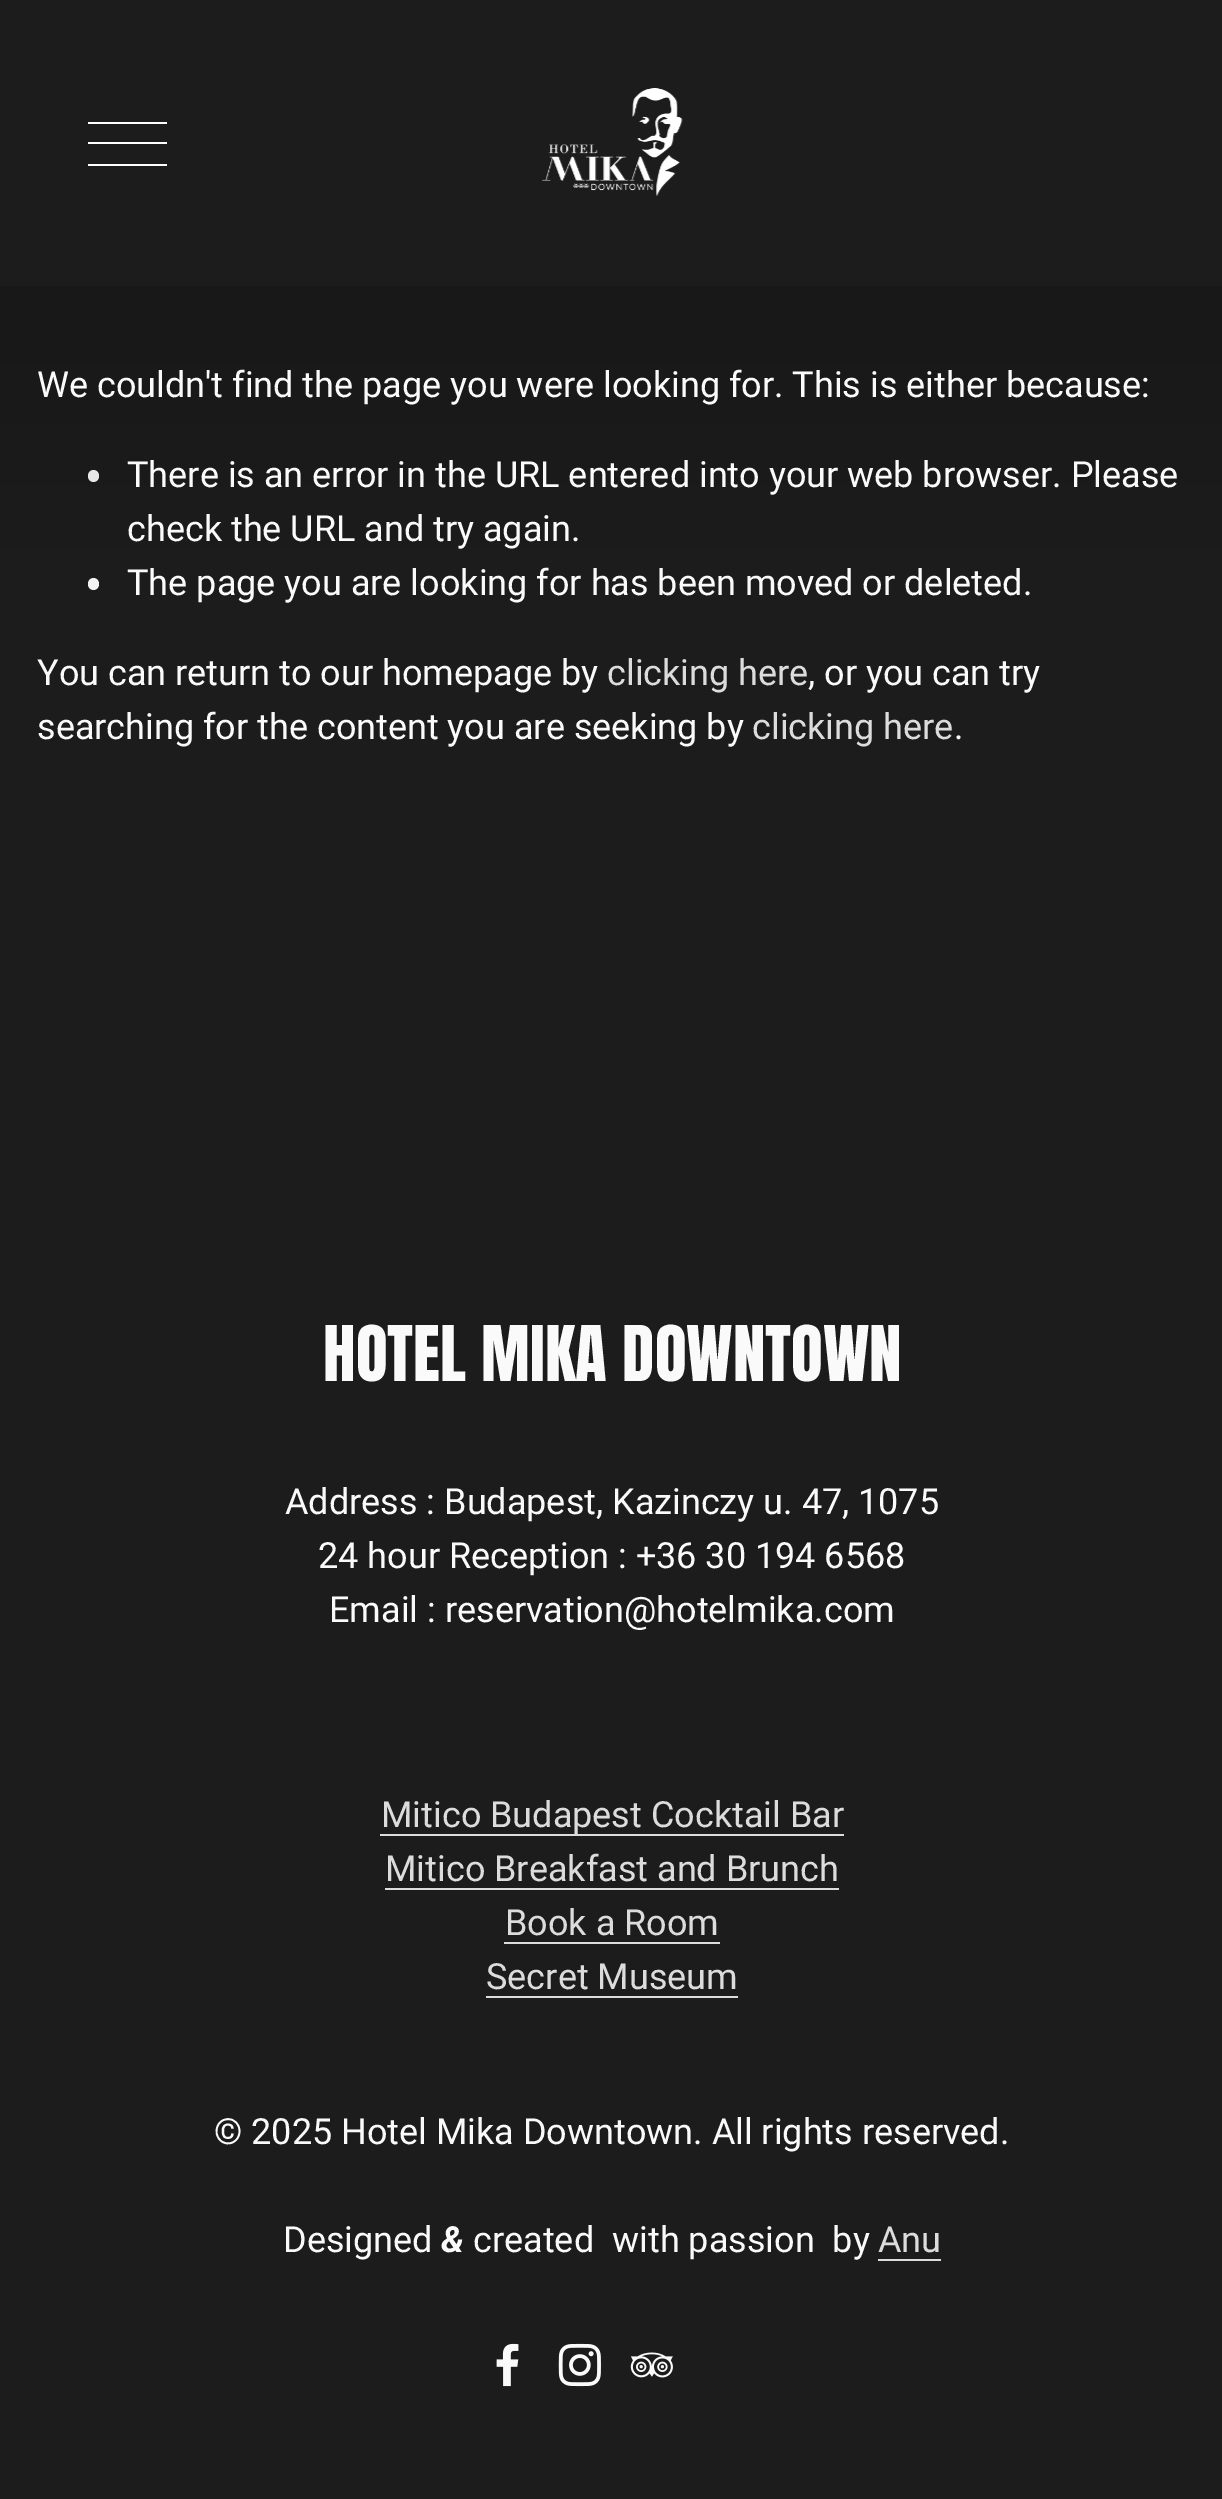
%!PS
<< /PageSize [1222 2499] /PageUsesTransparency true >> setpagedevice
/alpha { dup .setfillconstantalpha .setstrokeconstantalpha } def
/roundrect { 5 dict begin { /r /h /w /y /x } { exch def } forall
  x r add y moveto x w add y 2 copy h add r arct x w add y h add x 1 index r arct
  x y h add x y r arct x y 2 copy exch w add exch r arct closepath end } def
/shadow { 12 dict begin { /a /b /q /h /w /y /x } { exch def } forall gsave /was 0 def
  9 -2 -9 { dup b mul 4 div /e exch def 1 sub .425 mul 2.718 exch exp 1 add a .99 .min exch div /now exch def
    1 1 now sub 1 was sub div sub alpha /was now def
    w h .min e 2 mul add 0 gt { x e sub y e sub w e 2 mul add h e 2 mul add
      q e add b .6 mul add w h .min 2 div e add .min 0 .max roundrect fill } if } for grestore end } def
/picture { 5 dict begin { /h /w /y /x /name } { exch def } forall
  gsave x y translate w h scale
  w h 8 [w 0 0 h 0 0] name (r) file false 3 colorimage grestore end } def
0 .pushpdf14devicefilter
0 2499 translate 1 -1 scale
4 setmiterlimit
0.11 setgray
0 0 1222 2499 rectfill
0.98 setgray
88 470 11 12 5.5 roundrect fill
88 578 11 12 5.5 roundrect fill
gsave
newpath 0 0 moveto 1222 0 lineto 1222 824 lineto 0 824 lineto closepath 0 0 moveto 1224 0 lineto 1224 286 lineto 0 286 lineto closepath eoclip newpath
0 setgray
-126 -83 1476 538 0 122.5 0.15 shadow
grestore
1 setgray
88 122 79 2 rectfill
88 142 79 2 rectfill
88 164 79 2 rectfill
(img1.rgb) 542 88 141 108 picture
/Roboto-Regular [36 0 0 -36 0 0] selectfont
0.98 setgray
37 397 moveto (We couldn't find the page you were looking for. This is either because:) show
127 487 moveto (There is an error in the URL entered into your web browser. Please) show
127 541 moveto (check the URL and try again.) show
127 595 moveto (The page you are looking for has been moved or deleted.) show
37 685 moveto (You can return to our homepage by) show
0.863 setgray
607 685 moveto (clicking here) show
0.98 setgray
808 685 moveto (, or you can try) show
37 739 moveto (searching for the content you are seeking by) show
0.863 setgray
752 739 moveto (clicking here) show
0.98 setgray
954 739 moveto (.) show
/Anton-Regular [65.25 0 0 -65.25 0 0] selectfont
323 1381 moveto (HOTEL MIKA DOWNTOWN) show
/Roboto-Regular [36 0 0 -36 0 0] selectfont
285 1514 moveto (Address : Budapest, Kazinczy u. 47, 1075) show
318 1568 moveto (24 hour Reception : +36 30 194 6568) show
329 1622 moveto (Email : reservation@hotelmika.com) show
0.863 setgray
380 1834 464 2 rectfill
381 1827 moveto (Mitico Budapest Cocktail Bar) show
385 1881 moveto (Mitico Breakfast and Brunch) show
385 1888 454 2 rectfill
505 1935 moveto (Book a Room) show
504 1942 216 2 rectfill
486 1989 moveto (Secret Museum) show
486 1996 252 2 rectfill
0.98 setgray
214 2144 moveto (© 2025 Hotel Mika Downtown. All rights reserved.) show
283 2252 moveto (Designed) show
/Roboto-BoldItalic [36 0 0 -36 0 0] selectfont
441 2252 moveto (&) show
/Roboto-Regular [36 0 0 -36 0 0] selectfont
473 2252 moveto (created) show
612 2252 moveto (with passion  by) show
0.863 setgray
878 2252 moveto (Anu) show
878 2259 63 2 rectfill
(img2.rgb) 496 2343 23 44 picture
(img3.rgb) 558 2343 43 44 picture
(img4.rgb) 630 2352 43 26 picture
.poppdf14devicefilter showpage
